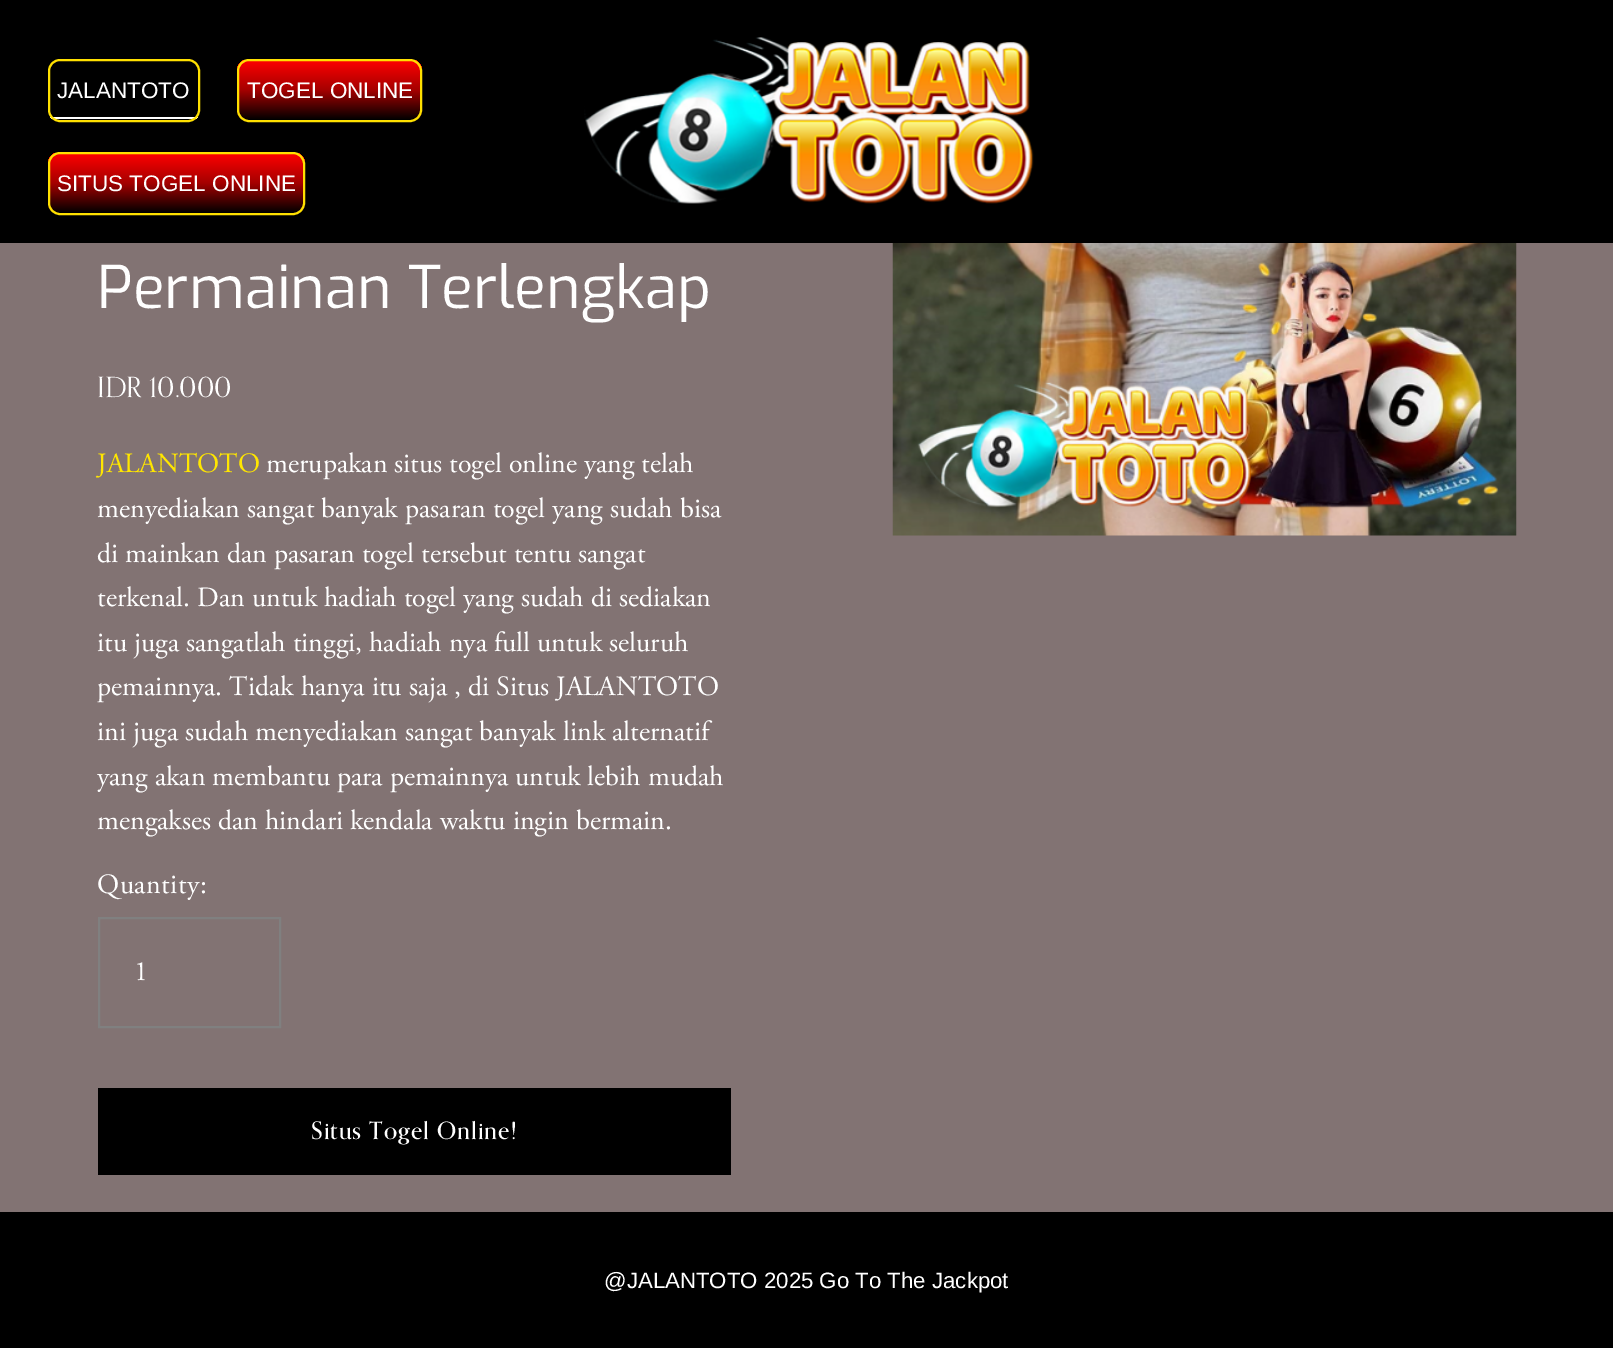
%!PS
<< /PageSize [1613 1348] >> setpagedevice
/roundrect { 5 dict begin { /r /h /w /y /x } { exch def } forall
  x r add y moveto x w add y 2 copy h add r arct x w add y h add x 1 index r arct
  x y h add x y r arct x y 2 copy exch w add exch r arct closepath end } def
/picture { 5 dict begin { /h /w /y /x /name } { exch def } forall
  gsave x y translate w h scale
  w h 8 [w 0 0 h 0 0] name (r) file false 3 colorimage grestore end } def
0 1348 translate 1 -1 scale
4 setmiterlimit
0 setgray
0 0 1613 1348 rectfill
gsave
48 59 152 63 12 roundrect clip newpath
1 setgray
48 117 152 2 rectfill
grestore
1 0.878 0 setrgbcolor
2 setlinewidth
49 60 150 61 11 roundrect stroke
/LiberationSans-Regular [22.5 0 0 -22.5 0 0] selectfont
1 setgray
57 98 moveto (JALANTOTO) show
gsave
237 59 185 63 12 roundrect clip newpath
gsave newpath 237 60 moveto 422 60 lineto 422 120 lineto 237 120 lineto closepath clip newpath
<< /ShadingType 2 /ColorSpace /DeviceRGB /Coords [329 60 329 120] /Extend [true true] /Function << /FunctionType 3 /Domain [0 1] /Functions [<< /FunctionType 2 /Domain [0 1] /C0 [1 0 0] /C1 [0.647 0 0] /N 1 >> << /FunctionType 2 /Domain [0 1] /C0 [0.647 0 0] /C1 [0 0 0] /N 1 >>] /Bounds [0.5] /Encode [0 1 0 1] >> >> shfill grestore
grestore
1 0.878 0 setrgbcolor
238 60 183 61 11 roundrect stroke
1 setgray
247 98 moveto (TOGEL ONLINE) show
gsave
48 152 257 63 12 roundrect clip newpath
gsave newpath 48 153 moveto 305 153 lineto 305 213 lineto 48 213 lineto closepath clip newpath
<< /ShadingType 2 /ColorSpace /DeviceRGB /Coords [176 153 176 213] /Extend [true true] /Function << /FunctionType 3 /Domain [0 1] /Functions [<< /FunctionType 2 /Domain [0 1] /C0 [1 0 0] /C1 [0.647 0 0] /N 1 >> << /FunctionType 2 /Domain [0 1] /C0 [0.647 0 0] /C1 [0 0 0] /N 1 >>] /Bounds [0.5] /Encode [0 1 0 1] >> >> shfill grestore
grestore
1 0.878 0 setrgbcolor
49 153 255 61 11 roundrect stroke
1 setgray
57 191 moveto (SITUS TOGEL ONLINE) show
(img1.rgb) 584 37 450 167 picture
0.51 0.451 0.451 setrgbcolor
0 243 1613 969 rectfill
/Exo-Regular [58.9 0 0 -58.9 0 0] selectfont
1 setgray
97 308 moveto (Permainan Terlengkap) show
/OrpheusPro-Regular [27.9 0 0 -27.9 0 0] selectfont
97 397 moveto (IDR 10.000) show
/AdobeGaramond-Regular [27.9 0 0 -27.9 0 0] selectfont
1 0.902 0 setrgbcolor
97 472 moveto (JALANTOTO) show
1 setgray
266 472 moveto (merupakan situs togel online yang telah) show
97 517 moveto (menyediakan sangat banyak pasaran togel yang sudah bisa) show
97 562 moveto (di mainkan dan pasaran togel tersebut tentu sangat) show
97 606 moveto (terkenal. Dan untuk hadiah togel yang sudah di sediakan) show
97 651 moveto (itu juga sangatlah tinggi, hadiah nya full untuk seluruh) show
97 695 moveto (pemainnya. Tidak hanya itu saja , di Situs JALANTOTO) show
97 740 moveto (ini juga sudah menyediakan sangat banyak link alternatif) show
97 785 moveto (yang akan membantu para pemainnya untuk lebih mudah) show
97 829 moveto (mengakses dan hindari kendala waktu ingin bermain.) show
97 893 moveto 0.5 0 (Quantity:) ashow
0.502 setgray
99 918 181 109 rectstroke
1 setgray
134 980 moveto (1) show
0 setgray
98 1088 633 87 rectfill
/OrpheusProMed-Medium [24 0 0 -24 0 0] selectfont
1 setgray
311 1139 moveto 1 0 (Situs Togel Online!) ashow
(img2.rgb) 892 243 625 293 picture
/LiberationSans-Regular [22.25 0 0 -22.25 0 0] selectfont
604 1288 moveto (@JALANTOTO 2025 Go To The Jackpot) show
showpage
